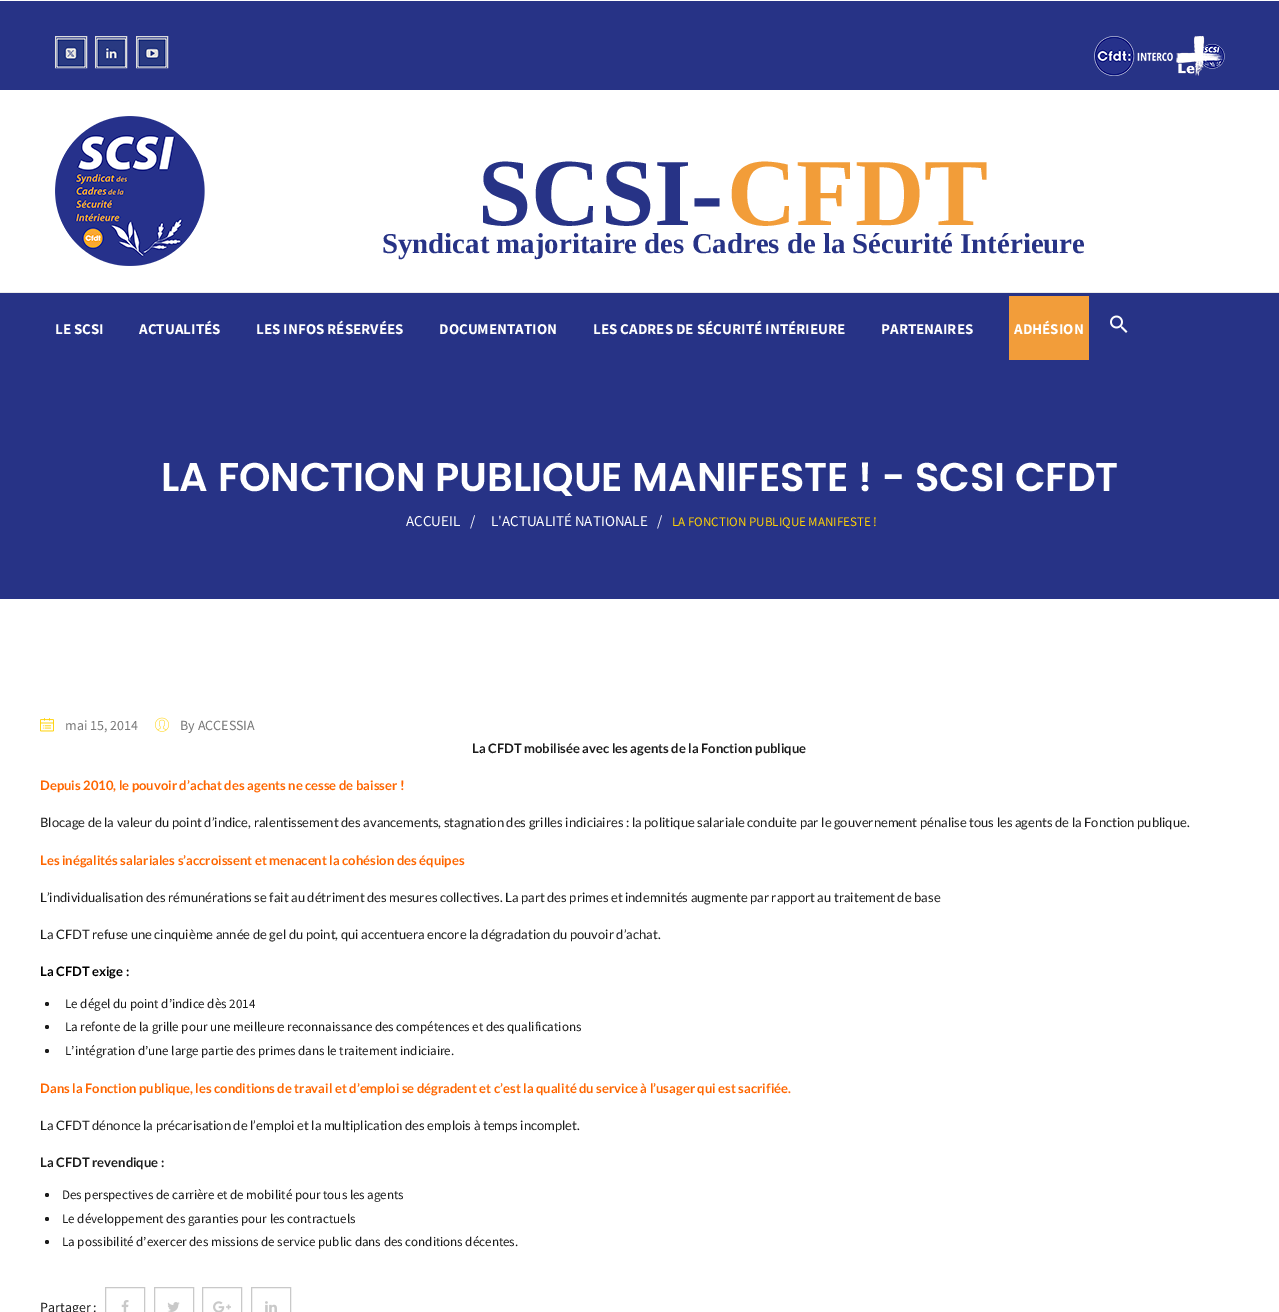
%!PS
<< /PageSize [1279 1312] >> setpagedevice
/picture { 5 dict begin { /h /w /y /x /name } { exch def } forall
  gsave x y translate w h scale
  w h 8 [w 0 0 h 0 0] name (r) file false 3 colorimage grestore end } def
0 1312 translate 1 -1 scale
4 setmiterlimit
1 setgray
0 0 1279 1312 rectfill
0.153 0.2 0.525 setrgbcolor
0 1 1279 89 rectfill
0.867 setgray
55.5 36.5 31 31 rectstroke
(img1.rgb) 56 38 30 30 picture
95.5 36.5 31 31 rectstroke
(img2.rgb) 96 38 30 30 picture
136.5 36.5 31 31 rectstroke
(img3.rgb) 137 38 30 30 picture
(img4.rgb) 1094 36 79 40 picture
(img5.rgb) 1176 36 49 40 picture
(img6.rgb) 55 116 150 150 picture
/LiberationSerif-Bold [96 0 0 -96 0 0] selectfont
0.153 0.2 0.525 setrgbcolor
478 225 moveto (SCSI-) show
0.949 0.616 0.224 setrgbcolor
727 225 moveto (CFDT) show
/LiberationSerif-Bold [28.8 0 0 -28.8 0 0] selectfont
0.153 0.2 0.525 setrgbcolor
382 253 moveto (Syndicat majoritaire des Cadres de la Sécurité Intérieure) show
0.922 setgray
0 292 1279 1 rectfill
0.153 0.2 0.525 setrgbcolor
0 293 1279 306 rectfill
/SourceSansPro-Bold [15 0 0 -15 0 0] selectfont
1 setgray
55 334 moveto (LE SCSI) show
139 334 moveto (ACTUALITÉS) show
256 334 moveto (LES INFOS RÉSERVÉES) show
439 334 moveto (DOCUMENTATION) show
593 334 moveto (LES CADRES DE SÉCURITÉ INTÉRIEURE) show
881 334 moveto (PARTENAIRES) show
0.949 0.616 0.227 setrgbcolor
1009 296 80 64 rectfill
1 setgray
1014 334 moveto (ADHÉSION) show
(img7.rgb) 1110 315 18 18 picture
/Poppins-SemiBold [40 0 0 -40 0 0] selectfont
161 491 moveto (LA FONCTION PUBLIQUE MANIFESTE ! - SCSI CFDT) show
/SourceSansPro-Regular [15 0 0 -15 0 0] selectfont
406 526 moveto (ACCUEIL) show
470 526 moveto (/) show
491 526 moveto (L'ACTUALITÉ NATIONALE) show
657 526 moveto (/) show
/SourceSansPro-Regular [13 0 0 -13 0 0] selectfont
1 0.82 0.02 setrgbcolor
672 526 moveto (LA FONCTION PUBLIQUE MANIFESTE !) show
(img8.rgb) 40 718 14 14 picture
/SourceSansPro-Regular [14 0 0 -14 0 0] selectfont
0.467 setgray
65 730 moveto (mai 15, 2014) show
(img9.rgb) 155 717 14 15 picture
180 730 moveto (By ACCESSIA) show
/Lato-Bold [13 0 0 -13 0 0] selectfont
0.11 setgray
472 753 moveto (La CFDT mobilisée avec les agents de la Fonction publique) show
1 0.4 0 setrgbcolor
40 790 moveto (Depuis 2010, le pouvoir d’achat des agents ne cesse de baisser !) show
/Lato-Regular [13 0 0 -13 0 0] selectfont
0.11 setgray
40 827 moveto (Blocage de la valeur du point d’indice, ralentissement des avancements, stagnation des grilles indiciaires : la politique salariale conduite par le gouvernement pénalise tous les agents de la Fonction publique.) show
/Lato-Bold [13 0 0 -13 0 0] selectfont
1 0.4 0 setrgbcolor
40 865 moveto (Les inégalités salariales s’accroissent et menacent la cohésion des équipes) show
/Lato-Regular [13 0 0 -13 0 0] selectfont
0.11 setgray
40 902 moveto (L’individualisation des rémunérations se fait au détriment des mesures collectives. La part des primes et indemnités augmente par rapport au traitement de base) show
40 939 moveto (La CFDT refuse une cinquième année de gel du point, qui accentuera encore la dégradation du pouvoir d’achat.) show
/Lato-Bold [13 0 0 -13 0 0] selectfont
0 setgray
40 976 moveto (La CFDT exige :) show
0.11 setgray
newpath 47 1004 2 0 360 arc closepath fill
/SourceSansPro-Regular [13 0 0 -13 0 0] selectfont
65 1008 moveto (Le dégel du point d’indice dès 2014) show
newpath 47 1027 2 0 360 arc closepath fill
65 1031 moveto (La refonte de la grille pour une meilleure reconnaissance des compétences et des qualifications) show
newpath 47 1051 2 0 360 arc closepath fill
65 1055 moveto (L’intégration d’une large partie des primes dans le traitement indiciaire.) show
/Lato-Bold [13 0 0 -13 0 0] selectfont
1 0.4 0 setrgbcolor
40 1093 moveto (Dans la Fonction publique, les conditions de travail et d’emploi se dégradent et c’est la qualité du service à l’usager qui est sacrifiée.) show
/Lato-Regular [13 0 0 -13 0 0] selectfont
0.11 setgray
40 1130 moveto (La CFDT dénonce la précarisation de l’emploi et la multiplication des emplois à temps incomplet.) show
/Lato-Bold [13 0 0 -13 0 0] selectfont
40 1167 moveto (La CFDT revendique :) show
newpath 47 1195 2 0 360 arc closepath fill
/SourceSansPro-Regular [13 0 0 -13 0 0] selectfont
62 1199 moveto (Des perspectives de carrière et de mobilité pour tous les agents) show
newpath 47 1219 2 0 360 arc closepath fill
62 1223 moveto (Le développement des garanties pour les contractuels) show
newpath 47 1242 2 0 360 arc closepath fill
62 1246 moveto (La possibilité d’exercer des missions de service public dans des conditions décentes.) show
/SourceSansPro-Regular [14 0 0 -14 0 0] selectfont
40 1312 moveto (Partager :) show
0.788 setgray
105.5 1287.5 39 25 rectstroke
(img10.rgb) 121 1300 8 12 picture
154.5 1287.5 39 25 rectstroke
(img11.rgb) 167 1302 13 10 picture
202.5 1287.5 39 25 rectstroke
(img12.rgb) 213 1301 18 11 picture
251.5 1287.5 39 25 rectstroke
(img13.rgb) 265 1301 12 11 picture
showpage
